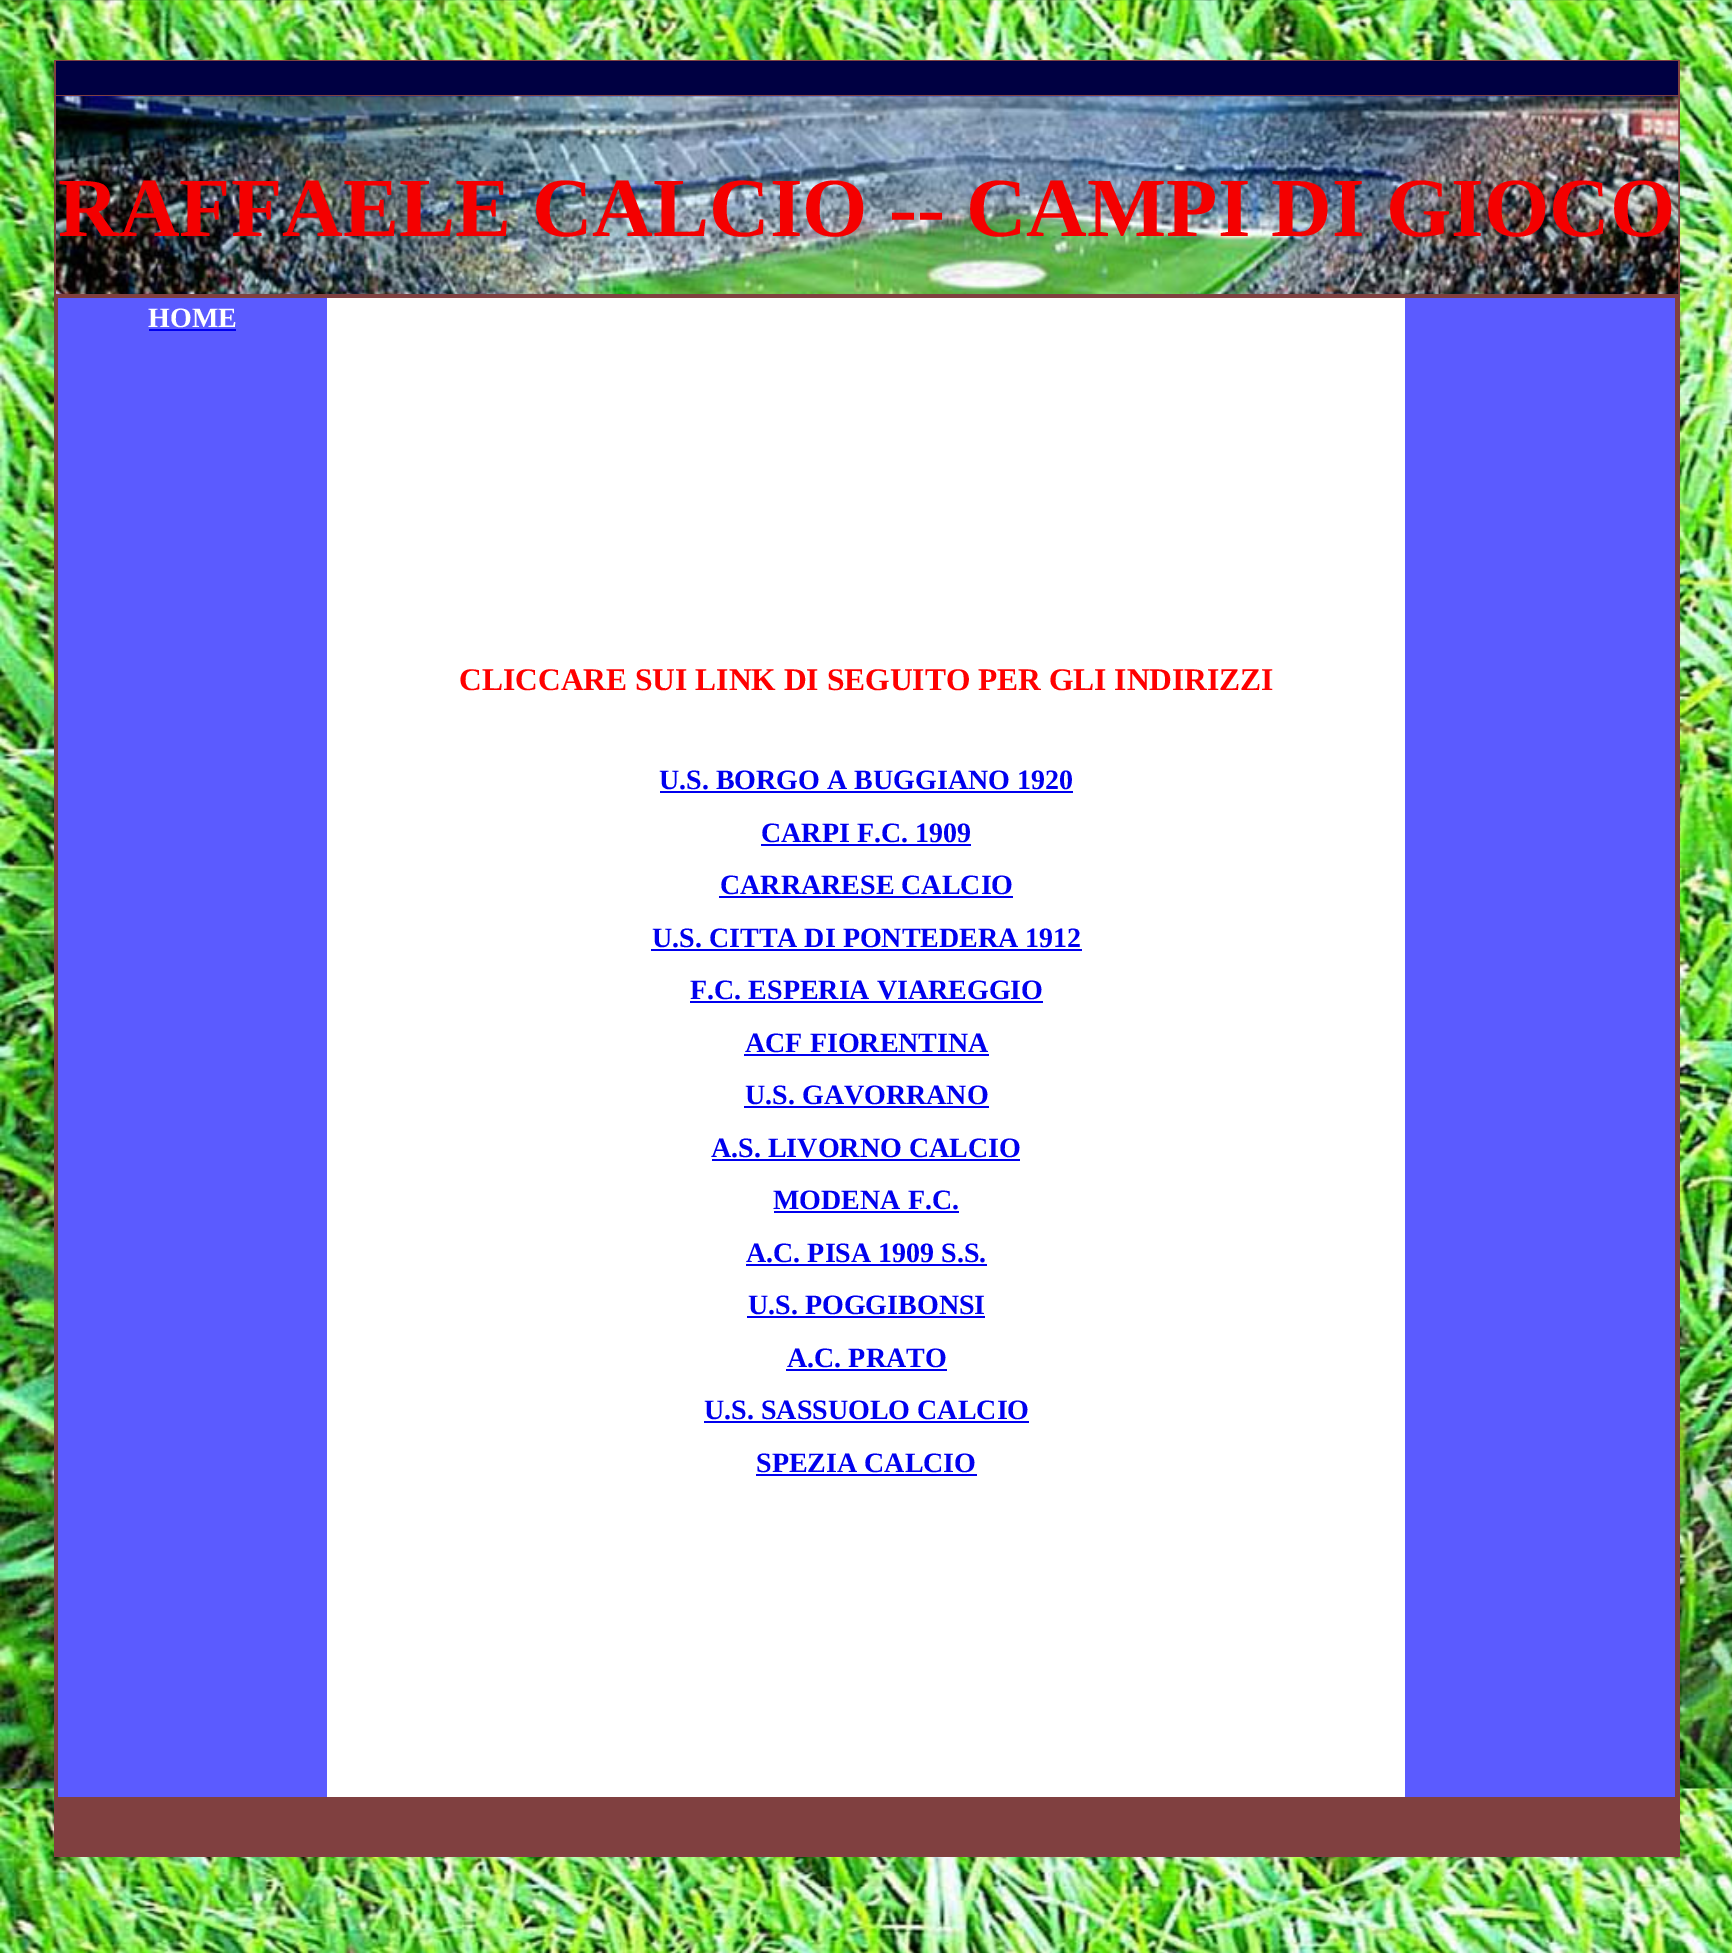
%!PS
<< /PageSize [1732 1953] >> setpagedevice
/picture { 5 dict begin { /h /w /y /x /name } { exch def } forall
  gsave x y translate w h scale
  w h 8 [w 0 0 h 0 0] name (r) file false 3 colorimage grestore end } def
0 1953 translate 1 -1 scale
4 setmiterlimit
1 setgray
0 0 1732 1953 rectfill
(img1.rgb) 0 0 1732 1953 picture
0.502 0.251 0.251 setrgbcolor
54 60 1626 1797 rectfill
0 0 0.259 setrgbcolor
56 61 1622 34 rectfill
(img2.rgb) 56 96 1623 198 picture
/LiberationSerif-Bold [84 0 0 -84 0 0] selectfont
0.957 0 0 setrgbcolor
58 236 moveto (RAFFAELE CALCIO -- CAMPI DI GIOCO) show
1 setgray
327 298 1078 1499 rectfill
0.357 0.357 1 setrgbcolor
58 298 269 1499 rectfill
/LiberationSerif-Bold [28 0 0 -28 0 0] selectfont
1 setgray
148 327 moveto (HOME) show
0 0 0.933 setrgbcolor
149 329 87 2 rectfill
0.357 0.357 1 setrgbcolor
1405 298 270 1499 rectfill
/LiberationSerif-Bold [31.5 0 0 -31.5 0 0] selectfont
1 0 0 setrgbcolor
459 690 moveto (CLICCARE SUI LINK DI SEGUITO PER GLI INDIRIZZI) show
/LiberationSerif-Bold [28 0 0 -28 0 0] selectfont
0 0 0.933 setrgbcolor
659 789 moveto (U.S. BORGO A BUGGIANO 1920) show
660 791 413 2 rectfill
761 842 moveto (CARPI F.C. 1909) show
761 844 210 2 rectfill
720 894 moveto (CARRARESE CALCIO) show
719 896 294 2 rectfill
652 947 moveto (U.S. CITTA DI PONTEDERA 1912) show
651 949 431 2 rectfill
690 999 moveto (F.C. ESPERIA VIAREGGIO) show
690 1001 353 2 rectfill
745 1052 moveto (ACF FIORENTINA) show
744 1054 245 2 rectfill
745 1104 moveto (U.S. GAVORRANO) show
744 1106 245 2 rectfill
711 1157 moveto (A.S. LIVORNO CALCIO) show
712 1159 308 2 rectfill
773 1209 moveto (MODENA F.C.) show
774 1211 185 2 rectfill
746 1262 moveto (A.C. PISA 1909 S.S.) show
746 1264 241 2 rectfill
748 1314 moveto (U.S. POGGIBONSI) show
747 1316 238 2 rectfill
787 1367 moveto (A.C. PRATO) show
786 1369 161 2 rectfill
704 1419 moveto (U.S. SASSUOLO CALCIO) show
704 1421 325 2 rectfill
756 1472 moveto (SPEZIA CALCIO) show
756 1474 221 2 rectfill
showpage
